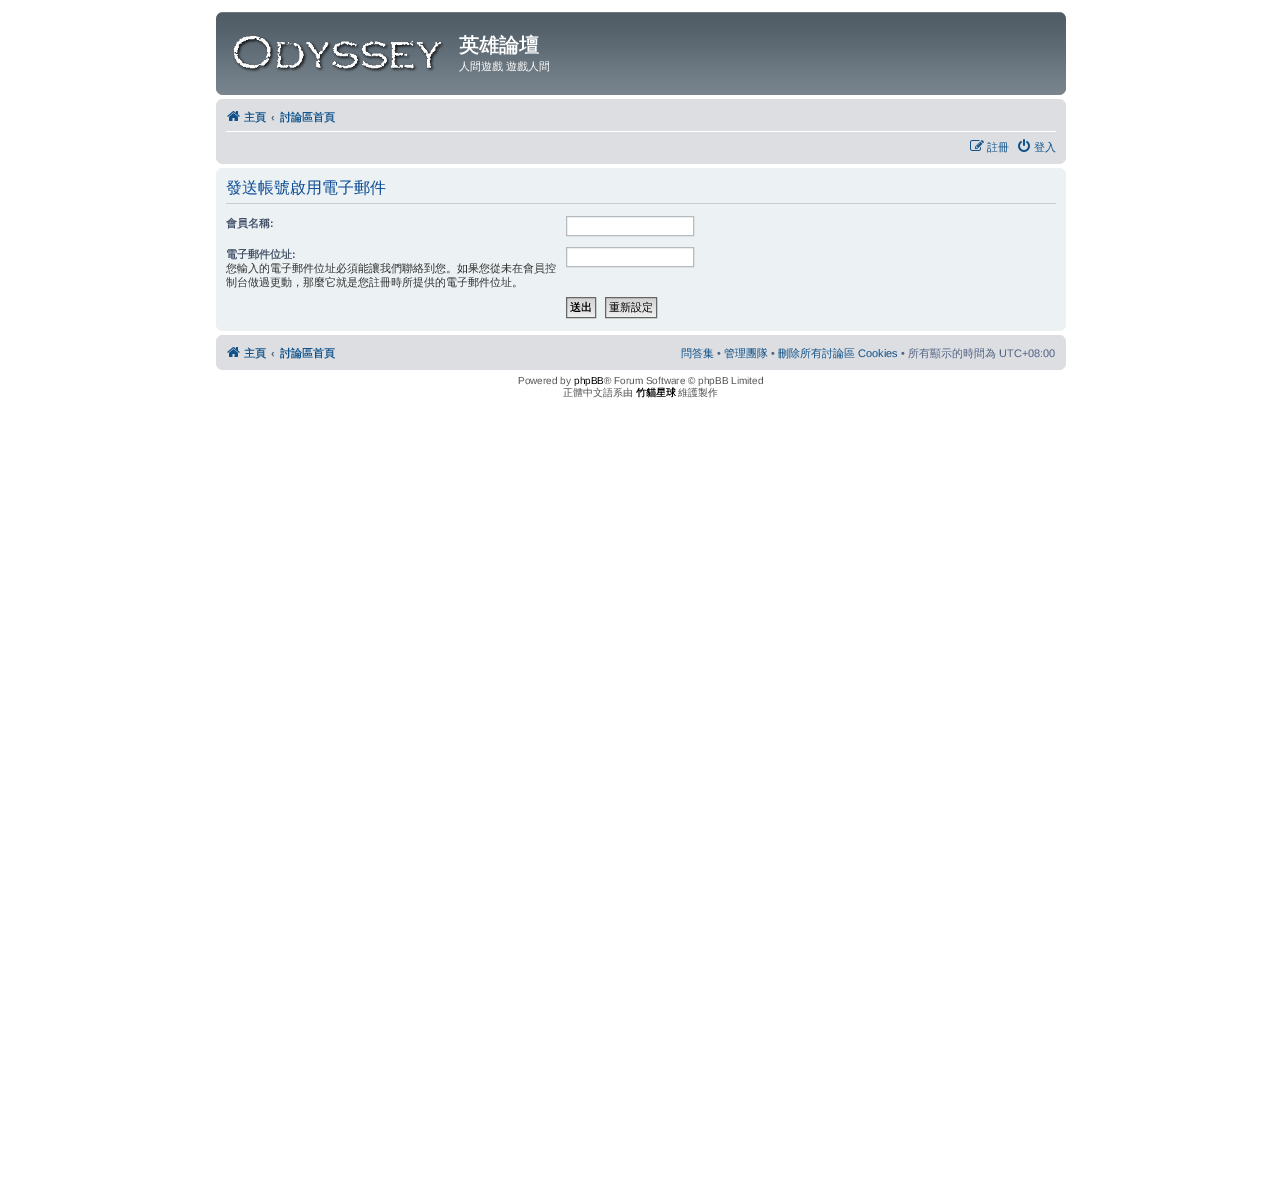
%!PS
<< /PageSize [1281 1195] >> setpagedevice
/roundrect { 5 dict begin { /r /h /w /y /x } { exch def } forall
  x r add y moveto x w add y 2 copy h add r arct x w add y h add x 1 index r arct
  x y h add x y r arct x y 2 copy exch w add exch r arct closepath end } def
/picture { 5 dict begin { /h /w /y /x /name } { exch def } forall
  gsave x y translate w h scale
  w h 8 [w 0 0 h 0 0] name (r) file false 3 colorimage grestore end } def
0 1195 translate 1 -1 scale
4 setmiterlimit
1 setgray
0 0 1281 1195 rectfill
(img1.rgb) 216 12 850 83 picture
(img2.rgb) 233 35 211 38 picture
/WenQuanYiZenHei-Bold [20 0 0 -20 0 0] selectfont
459 52 moveto (英雄論壇) show
/WenQuanYiZenHei-Medium [11 0 0 -11 0 0] selectfont
459 70 moveto (人間遊戲 遊戲人間) show
0.863 0.871 0.886 setrgbcolor
216 99 850 65 7 roundrect fill
(img3.rgb) 227 111 13 10 picture
/WenQuanYiZenHei-Bold [11 0 0 -11 0 0] selectfont
0.063 0.322 0.537 setrgbcolor
244 121 moveto (主頁) show
/LiberationSans-Bold [11 0 0 -11 0 0] selectfont
0.325 0.392 0.51 setrgbcolor
271 121 moveto (‹) show
/WenQuanYiZenHei-Bold [11 0 0 -11 0 0] selectfont
0.063 0.322 0.537 setrgbcolor
280 121 moveto (討論區首頁) show
1 setgray
226 131 830 1 rectfill
(img4.rgb) 970 140 14 11 picture
/WenQuanYiZenHei-Medium [11 0 0 -11 0 0] selectfont
0.063 0.322 0.537 setrgbcolor
987 151 moveto (註冊) show
(img5.rgb) 1018 139 12 13 picture
1034 151 moveto (登入) show
0.925 0.945 0.953 setrgbcolor
216 168 850 163 7 roundrect fill
0.8 setgray
226 203 830 1 rectfill
/WenQuanYiZenHei-Medium [16 0 0 -16 0 0] selectfont
0.067 0.314 0.596 setrgbcolor
226 193 moveto (發送帳號啟用電子郵件) show
/WenQuanYiZenHei-Bold [11 0 0 -11 0 0] selectfont
0.259 0.314 0.404 setrgbcolor
226 227 moveto (會員名稱) show
/LiberationSans-Bold [11 0 0 -11 0 0] selectfont
270 227 moveto (:) show
1 setgray
newpath 566.5 216.5 moveto 693.5 216.5 lineto 693.5 235.5 lineto 566.5 235.5 lineto closepath gsave fill grestore
0.706 0.729 0.753 setrgbcolor
stroke
/WenQuanYiZenHei-Bold [11 0 0 -11 0 0] selectfont
0.259 0.314 0.404 setrgbcolor
226 258 moveto (電子郵件位址) show
/LiberationSans-Bold [11 0 0 -11 0 0] selectfont
292 258 moveto (:) show
/WenQuanYiZenHei-Medium [11 0 0 -11 0 0] selectfont
0.2 setgray
226 272 moveto (您輸入的電子郵件位址必須能讓我們聯絡到您。如果您從未在會員控) show
226 286 moveto (制台做過更動，那麼它就是您註冊時所提供的電子郵件位址。) show
1 setgray
newpath 566.5 247.5 moveto 693.5 247.5 lineto 693.5 266.5 lineto 566.5 266.5 lineto closepath gsave fill grestore
0.706 0.729 0.753 setrgbcolor
stroke
gsave newpath 567 298 moveto 595 298 lineto 595 317 lineto 567 317 lineto closepath clip newpath
<< /ShadingType 2 /ColorSpace /DeviceRGB /Coords [581 298 581 317] /Extend [true true] /Function << /FunctionType 2 /Domain [0 1] /C0 [0.824 0.824 0.824] /C1 [0.937 0.937 0.937] /N 1 >> >> shfill grestore
0.4 setgray
566.5 297.5 29 20 rectstroke
/WenQuanYiZenHei-Bold [11 0 0 -11 0 0] selectfont
0 setgray
570 311 moveto (送出) show
gsave newpath 606 298 moveto 656 298 lineto 656 317 lineto 606 317 lineto closepath clip newpath
<< /ShadingType 2 /ColorSpace /DeviceRGB /Coords [631 298 631 317] /Extend [true true] /Function << /FunctionType 2 /Domain [0 1] /C0 [0.824 0.824 0.824] /C1 [0.937 0.937 0.937] /N 1 >> >> shfill grestore
0.4 setgray
605.5 297.5 51 20 rectstroke
/WenQuanYiZenHei-Medium [11 0 0 -11 0 0] selectfont
0 setgray
609 311 moveto (重新設定) show
0.863 0.871 0.886 setrgbcolor
216 335 850 35 7 roundrect fill
(img3.rgb) 227 347 13 10 picture
/WenQuanYiZenHei-Bold [11 0 0 -11 0 0] selectfont
0.063 0.322 0.537 setrgbcolor
244 357 moveto (主頁) show
/LiberationSans-Bold [11 0 0 -11 0 0] selectfont
0.325 0.392 0.51 setrgbcolor
271 357 moveto (‹) show
/WenQuanYiZenHei-Bold [11 0 0 -11 0 0] selectfont
0.063 0.322 0.537 setrgbcolor
280 357 moveto (討論區首頁) show
/WenQuanYiZenHei-Medium [11 0 0 -11 0 0] selectfont
681 357 moveto (問答集) show
/LiberationSans-Regular [11 0 0 -11 0 0] selectfont
0.325 0.392 0.51 setrgbcolor
717 357 moveto (•) show
/WenQuanYiZenHei-Medium [11 0 0 -11 0 0] selectfont
0.063 0.322 0.537 setrgbcolor
724 357 moveto (管理團隊) show
/LiberationSans-Regular [11 0 0 -11 0 0] selectfont
0.325 0.392 0.51 setrgbcolor
771 357 moveto (•) show
/WenQuanYiZenHei-Medium [11 0 0 -11 0 0] selectfont
0.063 0.322 0.537 setrgbcolor
778 357 moveto (刪除所有討論區) show
/LiberationSans-Regular [11 0 0 -11 0 0] selectfont
858 357 moveto (Cookies) show
0.325 0.392 0.51 setrgbcolor
901 357 moveto (•) show
/WenQuanYiZenHei-Medium [11 0 0 -11 0 0] selectfont
908 357 moveto (所有顯示的時間為) show
/LiberationSans-Regular [11 0 0 -11 0 0] selectfont
999 357 moveto (UTC+08:00) show
/LiberationSans-Regular [10 0 0 -10 0 0] selectfont
0.333 setgray
518 384 moveto (Powered by) show
0 setgray
574 384 moveto (phpBB) show
0.333 setgray
604 384 moveto (® Forum Software © phpBB Limited) show
/WenQuanYiZenHei-Medium [10 0 0 -10 0 0] selectfont
563 396 moveto (正體中文語系由) show
/WenQuanYiZenHei-Bold [10 0 0 -10 0 0] selectfont
0 setgray
636 396 moveto (竹貓星球) show
/WenQuanYiZenHei-Medium [10 0 0 -10 0 0] selectfont
0.333 setgray
678 396 moveto (維護製作) show
showpage
